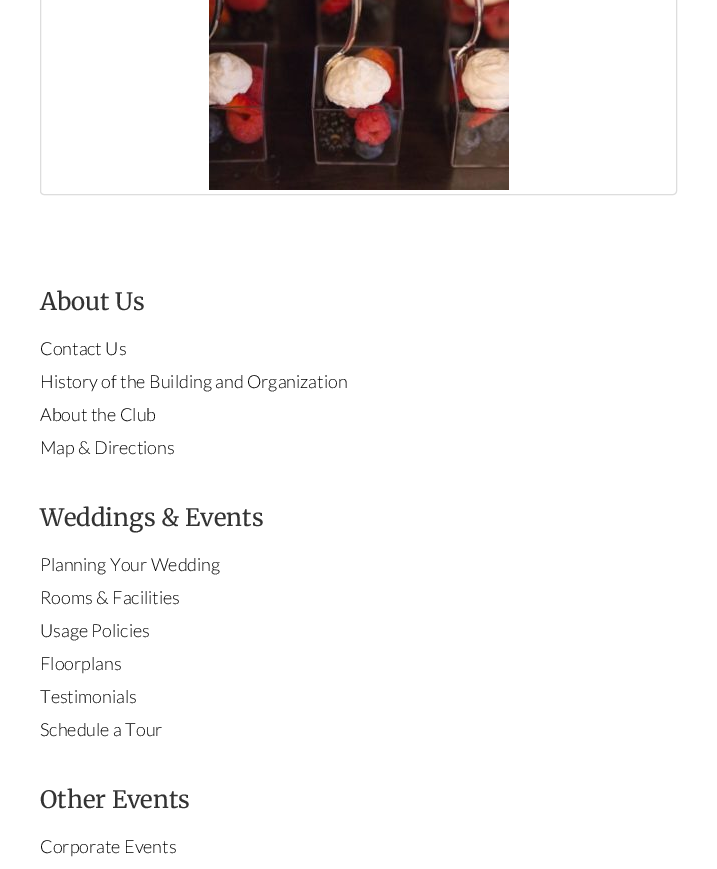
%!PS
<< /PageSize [717 869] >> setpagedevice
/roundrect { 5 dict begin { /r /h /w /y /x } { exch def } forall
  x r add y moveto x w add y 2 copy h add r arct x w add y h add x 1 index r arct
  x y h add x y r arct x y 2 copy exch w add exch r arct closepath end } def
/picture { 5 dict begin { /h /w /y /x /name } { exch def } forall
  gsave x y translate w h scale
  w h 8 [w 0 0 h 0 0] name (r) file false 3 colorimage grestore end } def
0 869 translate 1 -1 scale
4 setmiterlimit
1 setgray
0 0 717 869 rectfill
0.867 setgray
40.5 -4.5 636 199 3.5 roundrect stroke
(img1.rgb) 209 0 300 190 picture
/Merriweather-Regular [24 0 0 -24 0 0] selectfont
0.2 setgray
40 310 moveto (About Us) show
/Lato-Light [18 0 0 -18 0 0] selectfont
0 setgray
40 355 moveto (Contact Us) show
40 388 moveto (History of the Building and Organization) show
40 421 moveto (About the Club) show
40 454 moveto (Map & Directions) show
/Merriweather-Regular [24 0 0 -24 0 0] selectfont
0.2 setgray
40 526 moveto (Weddings & Events) show
/Lato-Light [18 0 0 -18 0 0] selectfont
0 setgray
40 571 moveto (Planning Your Wedding) show
40 604 moveto (Rooms & Facilities) show
40 637 moveto (Usage Policies) show
40 670 moveto (Floorplans) show
40 703 moveto (Testimonials) show
40 736 moveto (Schedule a Tour) show
/Merriweather-Regular [24 0 0 -24 0 0] selectfont
0.2 setgray
40 808 moveto (Other Events) show
/Lato-Light [18 0 0 -18 0 0] selectfont
0 setgray
40 853 moveto (Corporate Events) show
showpage
